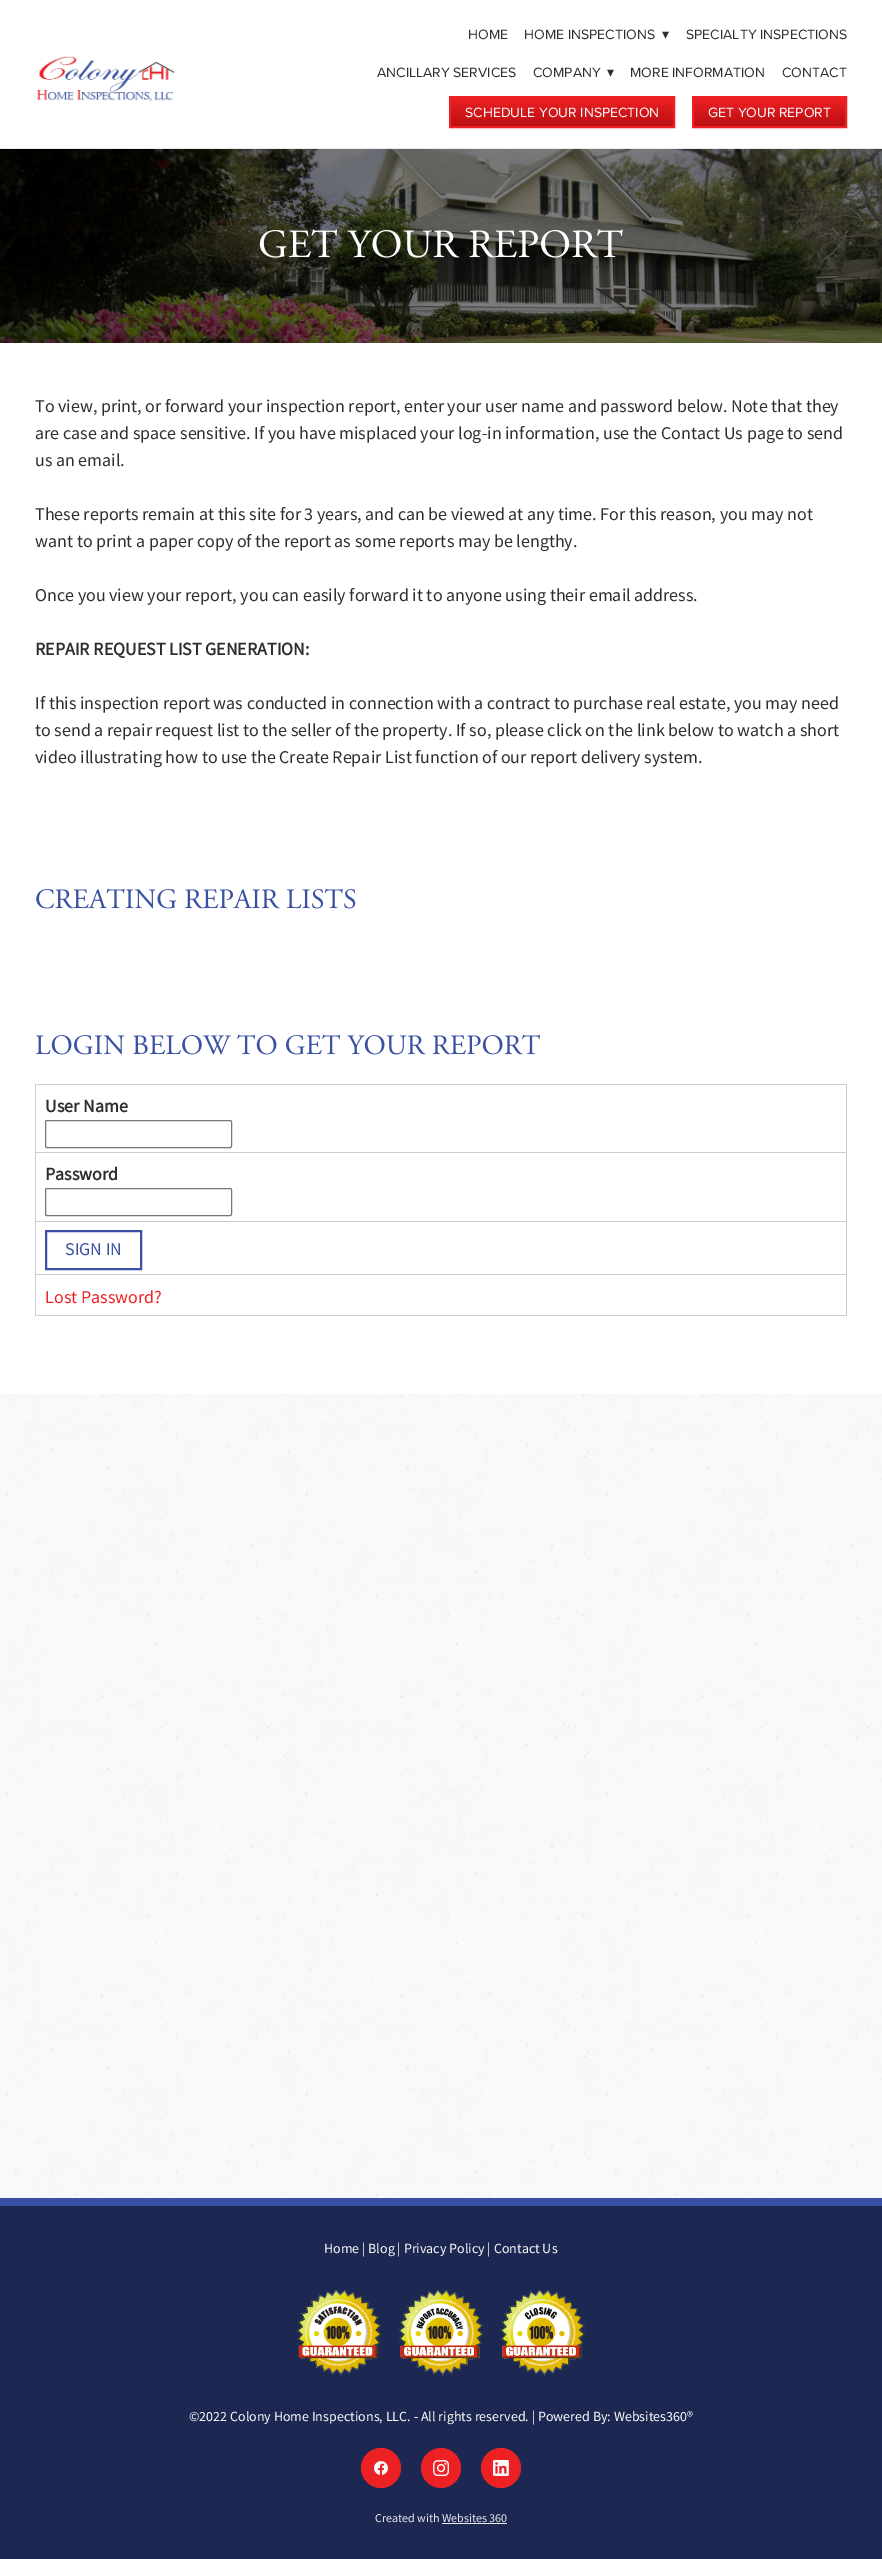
%!PS
<< /PageSize [882 2559] >> setpagedevice
/roundrect { 5 dict begin { /r /h /w /y /x } { exch def } forall
  x r add y moveto x w add y 2 copy h add r arct x w add y h add x 1 index r arct
  x y h add x y r arct x y 2 copy exch w add exch r arct closepath end } def
/picture { 5 dict begin { /h /w /y /x /name } { exch def } forall
  gsave x y translate w h scale
  w h 8 [w 0 0 h 0 0] name (r) file false 3 colorimage grestore end } def
0 2559 translate 1 -1 scale
4 setmiterlimit
1 setgray
0 0 882 2559 rectfill
(img1.rgb) 0 1394 882 804 picture
0.922 setgray
0 148 882 1 rectfill
(img2.rgb) 37 56 138 46 picture
/ProximaNova-Regular [14 0 0 -14 0 0] selectfont
0.18 setgray
468 39 moveto (HOME) show
524 39 moveto (HOME INSPECTIONS) show
/DejaVuSans-Regular [14 0 0 -14 0 0] selectfont
662 39 moveto (▾) show
/ProximaNova-Regular [14 0 0 -14 0 0] selectfont
686 39 moveto (SPECIALTY INSPECTIONS) show
377 77 moveto (ANCILLARY SERVICES) show
533 77 moveto (COMPANY) show
/DejaVuSans-Regular [14 0 0 -14 0 0] selectfont
607 77 moveto (▾) show
/ProximaNova-Regular [14 0 0 -14 0 0] selectfont
630 77 moveto (MORE INFORMATION) show
782 77 moveto (CONTACT) show
gsave newpath 451 98 moveto 673 98 lineto 673 126 lineto 451 126 lineto closepath clip newpath
<< /ShadingType 2 /ColorSpace /DeviceRGB /Coords [562 98 562 126] /Extend [true true] /Function << /FunctionType 2 /Domain [0 1] /C0 [0.929 0.125 0.141] /C1 [0.733 0.059 0.071] /N 1 >> >> shfill grestore
0.929 0.125 0.141 setrgbcolor
2 setlinewidth
450 97 224 30 rectstroke
0.984 setgray
465 117 moveto (SCHEDULE YOUR INSPECTION) show
gsave newpath 694 98 moveto 845 98 lineto 845 126 lineto 694 126 lineto closepath clip newpath
<< /ShadingType 2 /ColorSpace /DeviceRGB /Coords [770 98 770 126] /Extend [true true] /Function << /FunctionType 2 /Domain [0 1] /C0 [0.929 0.125 0.141] /C1 [0.733 0.059 0.071] /N 1 >> >> shfill grestore
0.929 0.125 0.141 setrgbcolor
693 97 153 30 rectstroke
0.984 setgray
708 117 moveto (GET YOUR REPORT) show
(img3.rgb) 0 149 882 194 picture
(img4.rgb) 259 229 364 29 picture
/SourceSansPro-Regular [18 0 0 -18 0 0] selectfont
0.18 setgray
35 412 moveto (To view, print, or forward your inspection report, enter your user name and password below. Note that they) show
35 439 moveto (are case and space sensitive. If you have misplaced your log-in information, use the Contact Us page to send) show
35 466 moveto (us an email.) show
35 520 moveto (These reports remain at this site for 3 years, and can be viewed at any time. For this reason, you may not) show
35 547 moveto (want to print a paper copy of the report as some reports may be lengthy.) show
35 601 moveto (Once you view your report, you can easily forward it to anyone using their email address.) show
/SourceSansPro-Bold [18 0 0 -18 0 0] selectfont
35 655 moveto (REPAIR REQUEST LIST GENERATION:) show
/SourceSansPro-Regular [18 0 0 -18 0 0] selectfont
35 709 moveto (If this inspection report was conducted in connection with a contract to purchase real estate, you may need) show
35 736 moveto (to send a repair request list to the seller of the property. If so, please click on the link below to watch a short) show
35 763 moveto (video illustrating how to use the Create Repair List function of our report delivery system.) show
(img5.rgb) 36 888 320 21 picture
(img6.rgb) 36 1034 504 21 picture
0.8 setgray
35 1084 812 1 rectfill
846 1084 1 232 rectfill
35 1315 812 1 rectfill
35 1084 1 232 rectfill
/SourceSansPro-Bold [18 0 0 -18 0 0] selectfont
0.18 setgray
45 1112 moveto (User Name) show
0.463 setgray
1 setlinewidth
45.5 1120.5 186 27 1.5 roundrect stroke
0.8 setgray
35 1152 812 1 rectfill
0.18 setgray
45 1180 moveto (Password) show
0.463 setgray
45.5 1188.5 186 27 1.5 roundrect stroke
0.8 setgray
35 1221 812 1 rectfill
0.227 0.314 0.639 setrgbcolor
2 setlinewidth
46 1231 95 38 rectstroke
/SourceSansPro-Regular [18 0 0 -18 0 0] selectfont
65 1255 moveto (SIGN IN) show
0.8 setgray
35 1274 812 1 rectfill
0.929 0.125 0.141 setrgbcolor
45 1303 moveto (Lost Password?) show
0.114 0.157 0.322 setrgbcolor
0 2206 882 353 rectfill
0.227 0.314 0.639 setrgbcolor
0 2198 882 8 rectfill
/SourceSansPro-Regular [14 0 0 -14 0 0] selectfont
0.984 setgray
324 2253 moveto (Home | Blog | Privacy Policy | Contact Us) show
(img7.rgb) 297 2290 288 86 picture
189 2421 moveto (©2022 Colony Home Inspections, LLC. - All rights reserved. | Powered By: Websites360®) show
0.929 0.125 0.141 setrgbcolor
newpath 381 2468 20 0 360 arc closepath fill
(img8.rgb) 374 2461 14 14 picture
newpath 441 2468 20 0 360 arc closepath fill
(img9.rgb) 433 2460 17 17 picture
newpath 501 2468 20 0 360 arc closepath fill
(img10.rgb) 493 2460 16 16 picture
/SourceSansPro-Regular [12 0 0 -12 0 0] selectfont
0.922 setgray
375 2522 moveto (Created with Websites 360) show
442 2523 65 1 rectfill
showpage
